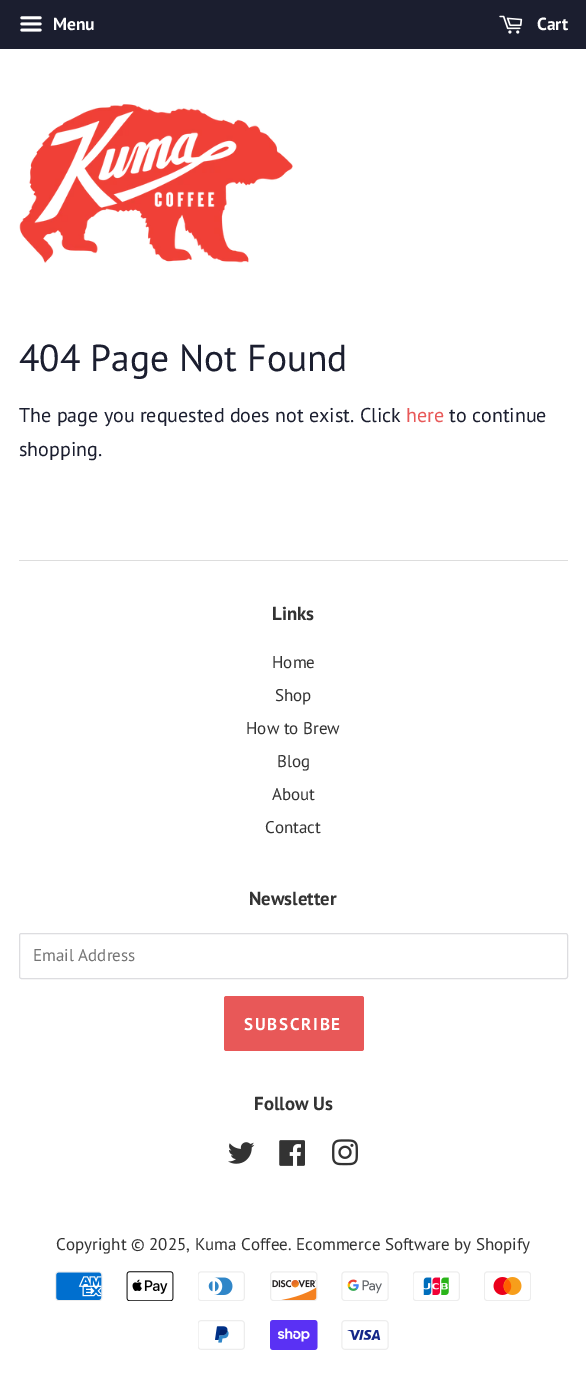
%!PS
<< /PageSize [586 1383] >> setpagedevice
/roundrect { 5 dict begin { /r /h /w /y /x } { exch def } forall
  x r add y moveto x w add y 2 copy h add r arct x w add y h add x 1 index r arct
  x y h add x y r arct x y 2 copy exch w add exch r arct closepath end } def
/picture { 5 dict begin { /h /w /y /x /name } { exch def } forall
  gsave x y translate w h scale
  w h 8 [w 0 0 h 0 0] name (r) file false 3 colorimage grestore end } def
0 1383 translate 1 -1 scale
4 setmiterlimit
1 setgray
0 0 586 1383 rectfill
0.106 0.118 0.184 setrgbcolor
0 0 586 49 rectfill
(img1.rgb) 20 16 22 16 picture
/PTSans-Bold [17.5 0 0 -17.5 0 0] selectfont
1 setgray
53 30 moveto (Menu) show
(img2.rgb) 499 15 24 19 picture
537 30 moveto (Cart) show
(img3.rgb) 19 104 274 159 picture
/PTSans-Regular [37.5 0 0 -37.5 0 0] selectfont
0.106 0.118 0.184 setrgbcolor
19 371 moveto (404 Page Not Found) show
/PTSans-Regular [20 0 0 -20 0 0] selectfont
19 422 moveto (The page you requested does not exist. Click) show
0.91 0.345 0.345 setrgbcolor
406 422 moveto (here) show
0.106 0.118 0.184 setrgbcolor
449 422 moveto (to continue) show
19 456 moveto (shopping.) show
0.867 setgray
19 560 549 1 rectfill
/PTSans-Bold [18.75 0 0 -18.75 0 0] selectfont
0.2 setgray
272 620 moveto (Links) show
/PTSans-Regular [17 0 0 -17 0 0] selectfont
272 668 moveto (Home) show
275 701 moveto (Shop) show
246 734 moveto (How to Brew) show
277 767 moveto (Blog) show
272 800 moveto (About) show
265 833 moveto (Contact) show
/PTSans-Bold [18.75 0 0 -18.75 0 0] selectfont
249 905 moveto (Newsletter) show
0.867 0.867 0.878 setrgbcolor
19.5 933.5 548 45 2 roundrect stroke
/PTSans-Regular [17 0 0 -17 0 0] selectfont
0.459 setgray
33 961 moveto (Email Address) show
0.91 0.345 0.345 setrgbcolor
224 996 140 55 2.5 roundrect fill
/PTSans-Bold [17 0 0 -17 0 0] selectfont
1 setgray
244 1030 moveto 1.75 0 (SUBSCRIBE) ashow
/PTSans-Bold [18.75 0 0 -18.75 0 0] selectfont
0.2 setgray
254 1110 moveto (Follow Us) show
(img4.rgb) 228 1142 27 22 picture
(img5.rgb) 279 1140 26 26 picture
(img6.rgb) 332 1139 26 27 picture
/PTSans-Regular [17 0 0 -17 0 0] selectfont
56 1250 moveto (Copyright © 2025, Kuma Coffee. Ecommerce Software by Shopify) show
(img7.rgb) 55 1271 48 30 picture
(img8.rgb) 126 1271 48 30 picture
(img9.rgb) 198 1271 47 30 picture
(img10.rgb) 270 1271 48 30 picture
(img11.rgb) 341 1271 48 30 picture
(img12.rgb) 413 1271 47 30 picture
(img13.rgb) 484 1271 47 30 picture
(img14.rgb) 198 1320 47 30 picture
(img15.rgb) 270 1320 48 30 picture
(img16.rgb) 341 1320 48 30 picture
showpage
